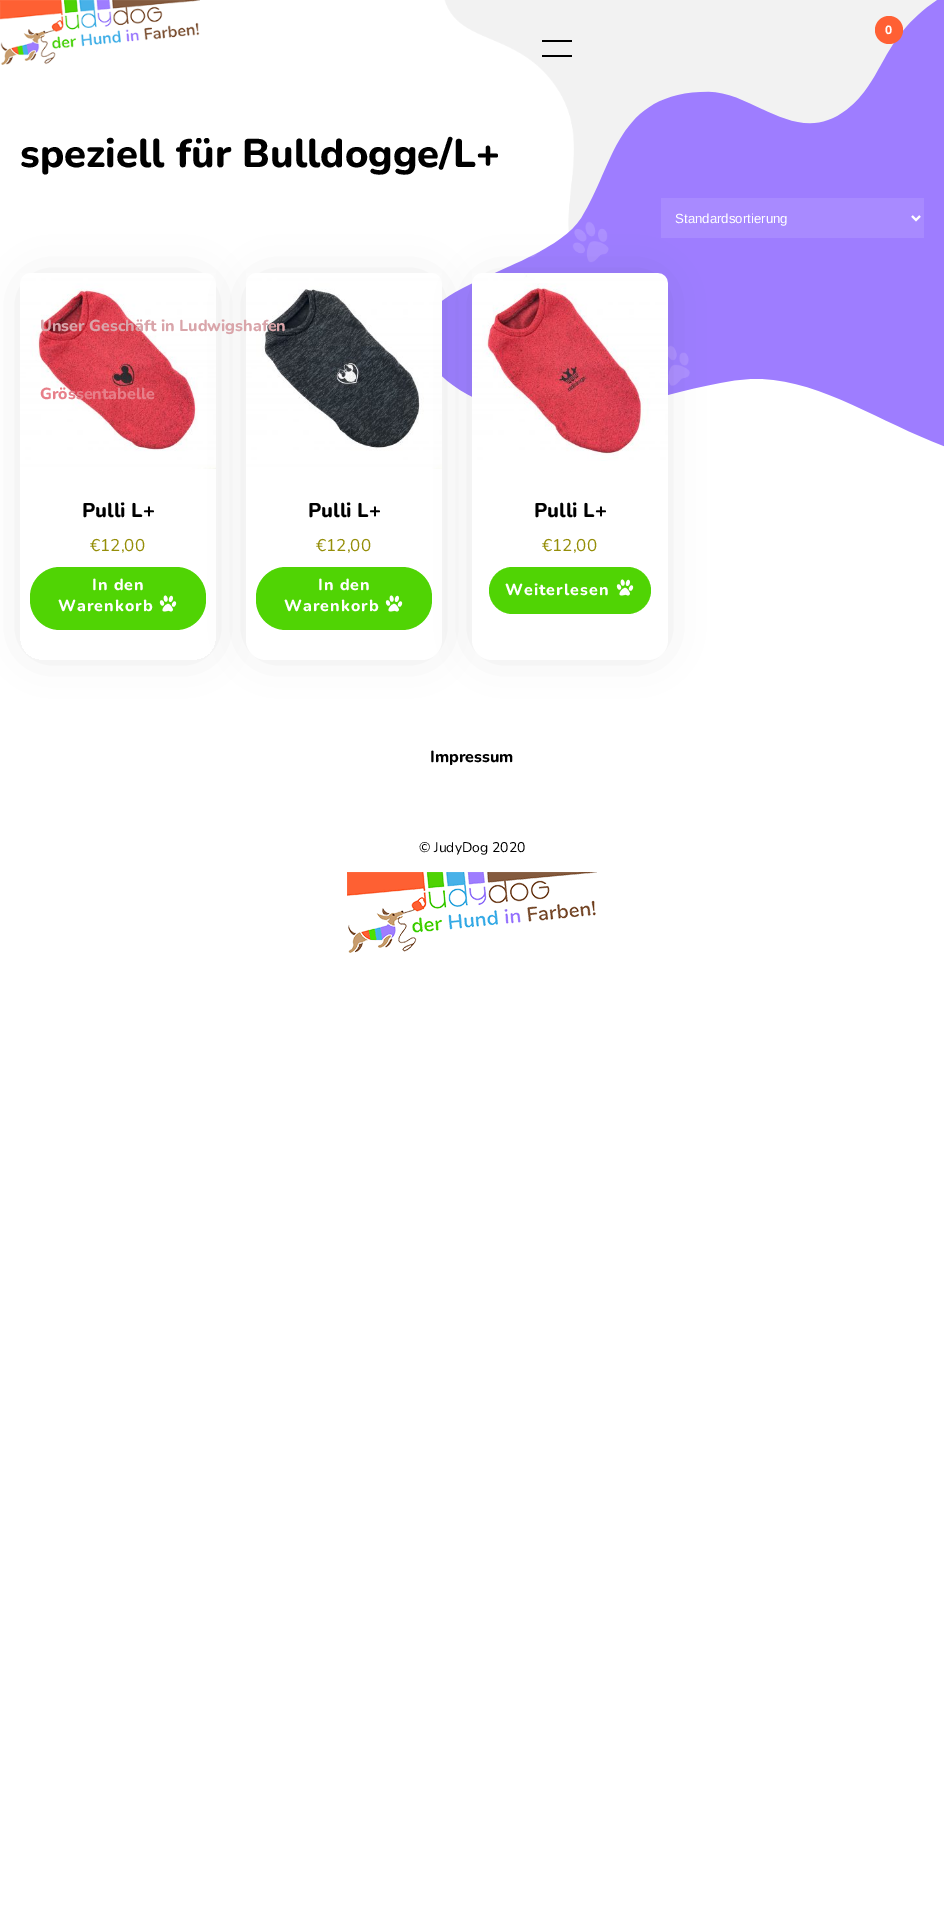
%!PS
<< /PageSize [944 1912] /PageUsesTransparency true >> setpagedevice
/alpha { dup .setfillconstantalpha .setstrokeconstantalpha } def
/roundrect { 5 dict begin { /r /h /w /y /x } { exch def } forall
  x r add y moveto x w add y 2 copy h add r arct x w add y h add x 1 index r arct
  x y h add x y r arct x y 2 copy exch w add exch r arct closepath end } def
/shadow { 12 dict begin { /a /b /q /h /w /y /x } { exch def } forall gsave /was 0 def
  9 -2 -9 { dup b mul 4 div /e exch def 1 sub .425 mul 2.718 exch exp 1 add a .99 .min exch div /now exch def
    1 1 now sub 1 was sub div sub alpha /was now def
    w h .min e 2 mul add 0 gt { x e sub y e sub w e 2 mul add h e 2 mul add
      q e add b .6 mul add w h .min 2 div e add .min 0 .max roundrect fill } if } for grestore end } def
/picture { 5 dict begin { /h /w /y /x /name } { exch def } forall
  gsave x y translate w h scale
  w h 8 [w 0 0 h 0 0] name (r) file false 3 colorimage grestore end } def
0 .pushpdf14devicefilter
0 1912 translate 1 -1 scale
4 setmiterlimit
1 setgray
0 0 944 1912 rectfill
(img1.rgb) 442 0 502 447 picture
(img2.rgb) 0 0 200 65 picture
1 0.376 0.204 setrgbcolor
newpath 889 30 14 0 360 arc closepath fill
/Nunito-ExtraBold [12 0 0 -12 0 0] selectfont
1 setgray
885 34 moveto (0) show
0 setgray
542 40 30 2 rectfill
542 55 30 2 rectfill
gsave
newpath 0 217 moveto 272 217 lineto 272 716 lineto 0 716 lineto closepath 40 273 moveto 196 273 lineto 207 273 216 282 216 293 curveto 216 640 lineto 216 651 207 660 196 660 curveto 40 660 lineto 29 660 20 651 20 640 curveto 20 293 lineto 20 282 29 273 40 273 curveto closepath eoclip newpath
31 284 174 365 9 22 0.14 shadow
grestore
(img3.rgb) 20 273 196 196 picture
0.314 0.831 0.016 setrgbcolor
30 567 176 63 30 roundrect fill
0 setgray
257 284 174 365 9 22 0.14 shadow
1 setgray
246 273 196 387 20 roundrect fill
(img5.rgb) 246 273 196 196 picture
/Nunito-ExtraBold [16 0 0 -16 0 0] selectfont
0.851 0.647 0.667 setrgbcolor
40 331 moveto (Unser Geschäft in Ludwigshafen) show
0.906 0.498 0.537 setrgbcolor
40 399 moveto (Grössentabelle) show
/Nunito-ExtraBold [40 0 0 -40 0 0] selectfont
0 setgray
20 167 moveto (speziell für Bulldogge/L+) show
0.659 0.541 1 setrgbcolor
661 198 263 40 rectfill
1 setgray
2 setlinewidth
newpath 912 216 moveto 916 220 lineto 920 216 lineto stroke
/LiberationSans-Regular [13.25 0 0 -13.25 0 0] selectfont
675 223 moveto (Standardsortierung) show
/Nunito-ExtraBold [20 0 0 -20 0 0] selectfont
0 setgray
82 517 moveto (Pulli L+) show
/Nunito-Regular [17 0 0 -17 0 0] selectfont
0.584 0.557 0.035 setrgbcolor
90 551 moveto (€12,00) show
/Nunito-ExtraBold [16 0 0 -16 0 0] selectfont
1 setgray
92 590 moveto 1 0 (In den) ashow
58 611 moveto 1 0 (Warenkorb) ashow
(img4.rgb) 159 595 18 17 picture
/Nunito-ExtraBold [20 0 0 -20 0 0] selectfont
0 setgray
308 517 moveto (Pulli L+) show
/Nunito-Regular [17 0 0 -17 0 0] selectfont
0.584 0.557 0.035 setrgbcolor
316 551 moveto (€12,00) show
0.314 0.831 0.016 setrgbcolor
256 567 176 63 30 roundrect fill
/Nunito-ExtraBold [16 0 0 -16 0 0] selectfont
1 setgray
318 590 moveto 1 0 (In den) ashow
284 611 moveto 1 0 (Warenkorb) ashow
(img4.rgb) 385 595 18 17 picture
0 setgray
483 284 174 365 9 22 0.14 shadow
1 setgray
472 273 196 387 20 roundrect fill
(img6.rgb) 472 273 196 188 picture
/Nunito-ExtraBold [20 0 0 -20 0 0] selectfont
0 setgray
534 517 moveto (Pulli L+) show
/Nunito-Regular [17 0 0 -17 0 0] selectfont
0.584 0.557 0.035 setrgbcolor
542 551 moveto (€12,00) show
0.314 0.831 0.016 setrgbcolor
489 567 162 47 23.5 roundrect fill
/Nunito-ExtraBold [16 0 0 -16 0 0] selectfont
1 setgray
505 595 moveto 1 0 (Weiterlesen) ashow
(img4.rgb) 616 579 18 17 picture
0 setgray
430 762 moveto (Impressum) show
/Nunito-Regular [14 0 0 -14 0 0] selectfont
419 852 moveto (© JudyDog 2020) show
(img7.rgb) 347 872 250 81 picture
.poppdf14devicefilter showpage
